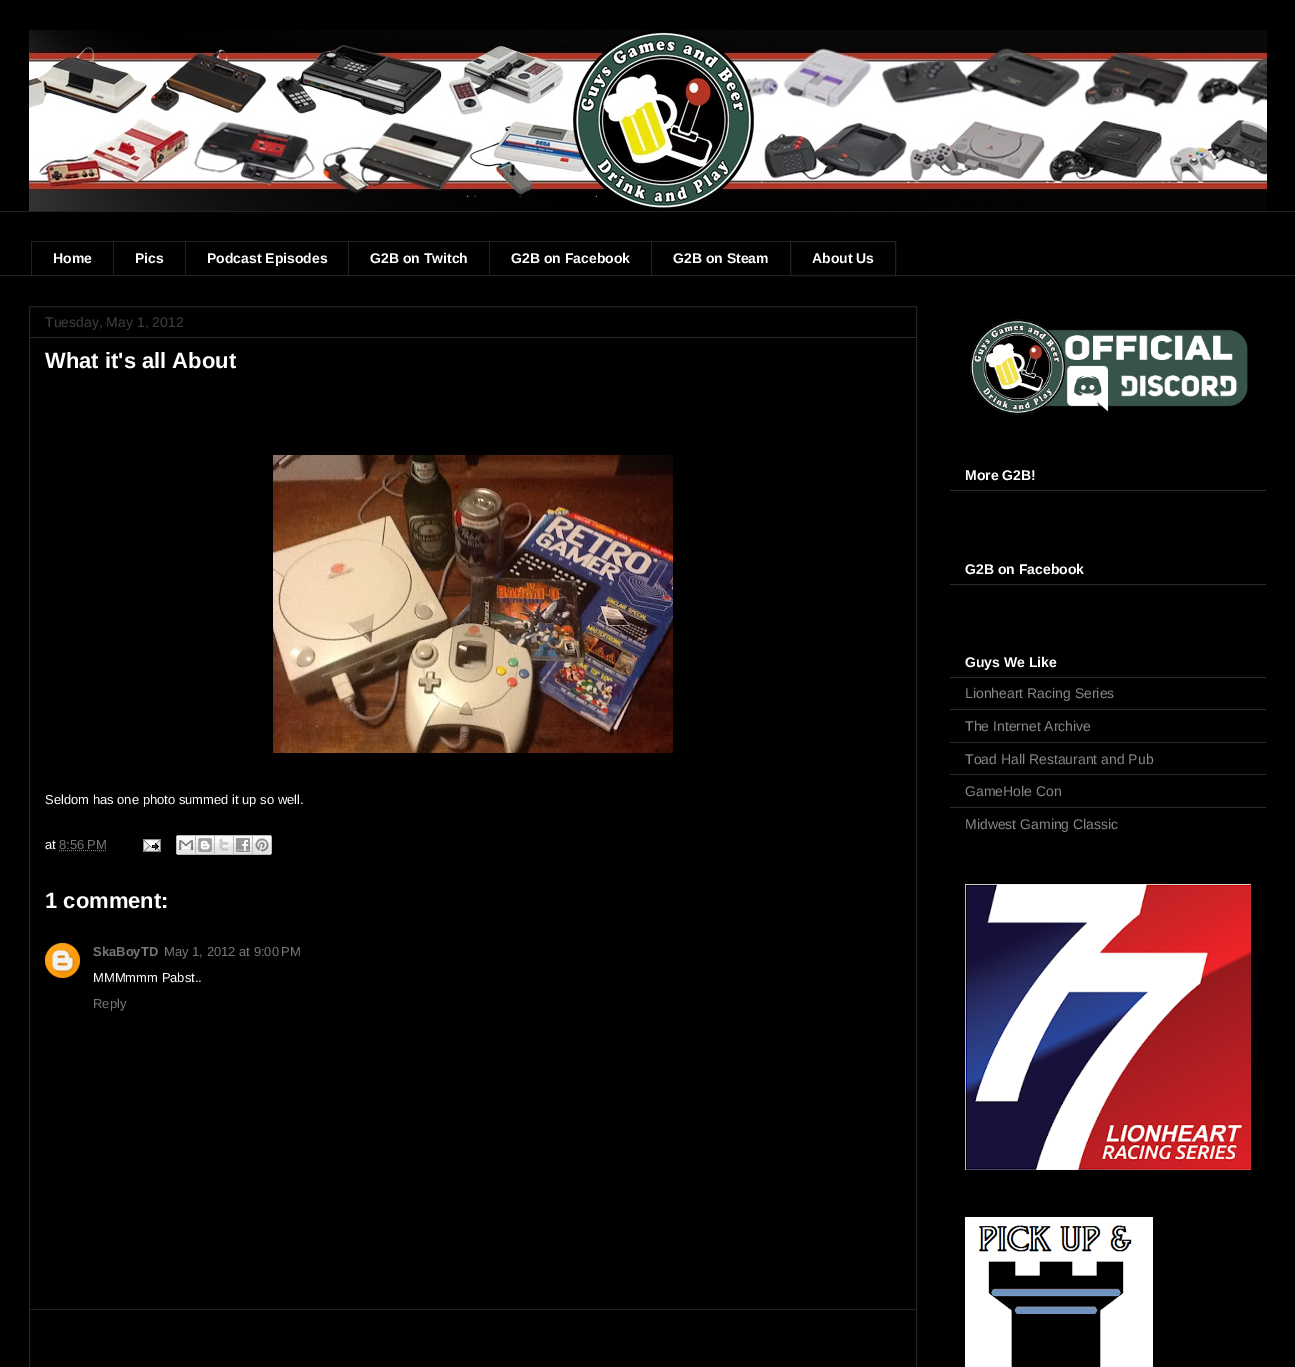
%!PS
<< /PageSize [1295 1367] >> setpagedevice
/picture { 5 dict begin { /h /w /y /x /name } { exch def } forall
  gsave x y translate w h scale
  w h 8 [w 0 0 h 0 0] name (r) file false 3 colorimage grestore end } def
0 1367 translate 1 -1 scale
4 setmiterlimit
0 setgray
0 0 1295 1367 rectfill
(img1.rgb) 29 30 1238 181 picture
0.133 setgray
0 211 1295 1 rectfill
31 241 759 1 rectfill
31 241 1 35 rectfill
/LiberationSans-Bold [14 0 0 -14 0 0] selectfont
1 setgray
53 263 moveto (Home) show
0.133 setgray
113 241 1 35 rectfill
1 setgray
135 263 moveto (Pics) show
0.133 setgray
185 241 1 35 rectfill
1 setgray
207 263 moveto (Podcast Episodes) show
0.133 setgray
348 241 1 35 rectfill
1 setgray
370 263 moveto (G2B on Twitch) show
0.133 setgray
489 241 1 35 rectfill
1 setgray
511 263 moveto (G2B on Facebook) show
0.133 setgray
651 241 1 35 rectfill
1 setgray
673 263 moveto (G2B on Steam) show
0.133 setgray
790.5 241.5 105 34 rectstroke
1 setgray
812 263 moveto (About Us) show
0.133 setgray
0 275 1295 1 rectfill
29.5 306.5 887 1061 rectstroke
0.165 0.161 0.161 setrgbcolor
30 337 886 1 rectfill
/LiberationSans-Regular [14 0 0 -14 0 0] selectfont
0.247 setgray
45 327 moveto (Tuesday, May 1, 2012) show
/LiberationSans-Bold [22 0 0 -22 0 0] selectfont
1 setgray
45 368 moveto (What it's all About) show
(img2.rgb) 273 455 400 298 picture
/LiberationSans-Regular [13 0 0 -13 0 0] selectfont
45 804 moveto (Seldom has one photo summed it up so well.) show
45 849 moveto (at) show
0.467 setgray
59 849 moveto (8:56 PM) show
[1 1] 0 setdash
newpath 59 850.5 moveto 106.5 850.5 lineto stroke
(img3.rgb) 143 839 18 13 picture
(img4.rgb) 176 835 20 20 picture
(img5.rgb) 196 835 19 20 picture
(img6.rgb) 215 835 19 20 picture
(img7.rgb) 234 835 19 20 picture
(img8.rgb) 253 835 19 20 picture
/LiberationSans-Bold [22 0 0 -22 0 0] selectfont
1 setgray
45 908 moveto (1 comment:) show
(img9.rgb) 45 943 35 35 picture
/LiberationSans-Bold [13 0 0 -13 0 0] selectfont
0.467 setgray
93 956 moveto (SkaBoyTD) show
/LiberationSans-Regular [13 0 0 -13 0 0] selectfont
164 956 moveto (May 1, 2012 at 9:00 PM) show
1 setgray
93 982 moveto (MMMmmm Pabst..) show
0.467 setgray
93 1008 moveto (Reply) show
0.133 setgray
30 1309 886 1 rectfill
(img10.rgb) 970 319 278 96 picture
0.165 0.161 0.161 setrgbcolor
950 490 316 1 rectfill
/LiberationSans-Bold [14 0 0 -14 0 0] selectfont
1 setgray
965 480 moveto (More G2B!) show
0.165 0.161 0.161 setrgbcolor
950 584 316 1 rectfill
1 setgray
965 574 moveto (G2B on Facebook) show
0.165 0.161 0.161 setrgbcolor
950 677 316 1 rectfill
1 setgray
965 667 moveto (Guys We Like) show
0.165 0.161 0.161 setrgbcolor
950 709 316 1 rectfill
/LiberationSans-Regular [14 0 0 -14 0 0] selectfont
0.533 setgray
965 698 moveto (Lionheart Racing Series) show
0.165 0.161 0.161 setrgbcolor
950 742 316 1 rectfill
0.533 setgray
965 731 moveto (The Internet Archive) show
0.165 0.161 0.161 setrgbcolor
950 774 316 1 rectfill
0.533 setgray
965 764 moveto (Toad Hall Restaurant and Pub) show
0.165 0.161 0.161 setrgbcolor
950 807 316 1 rectfill
0.533 setgray
965 796 moveto (GameHole Con) show
965 829 moveto (Midwest Gaming Classic) show
(img11.rgb) 965 884 286 286 picture
(img12.rgb) 965 1217 188 150 picture
showpage
